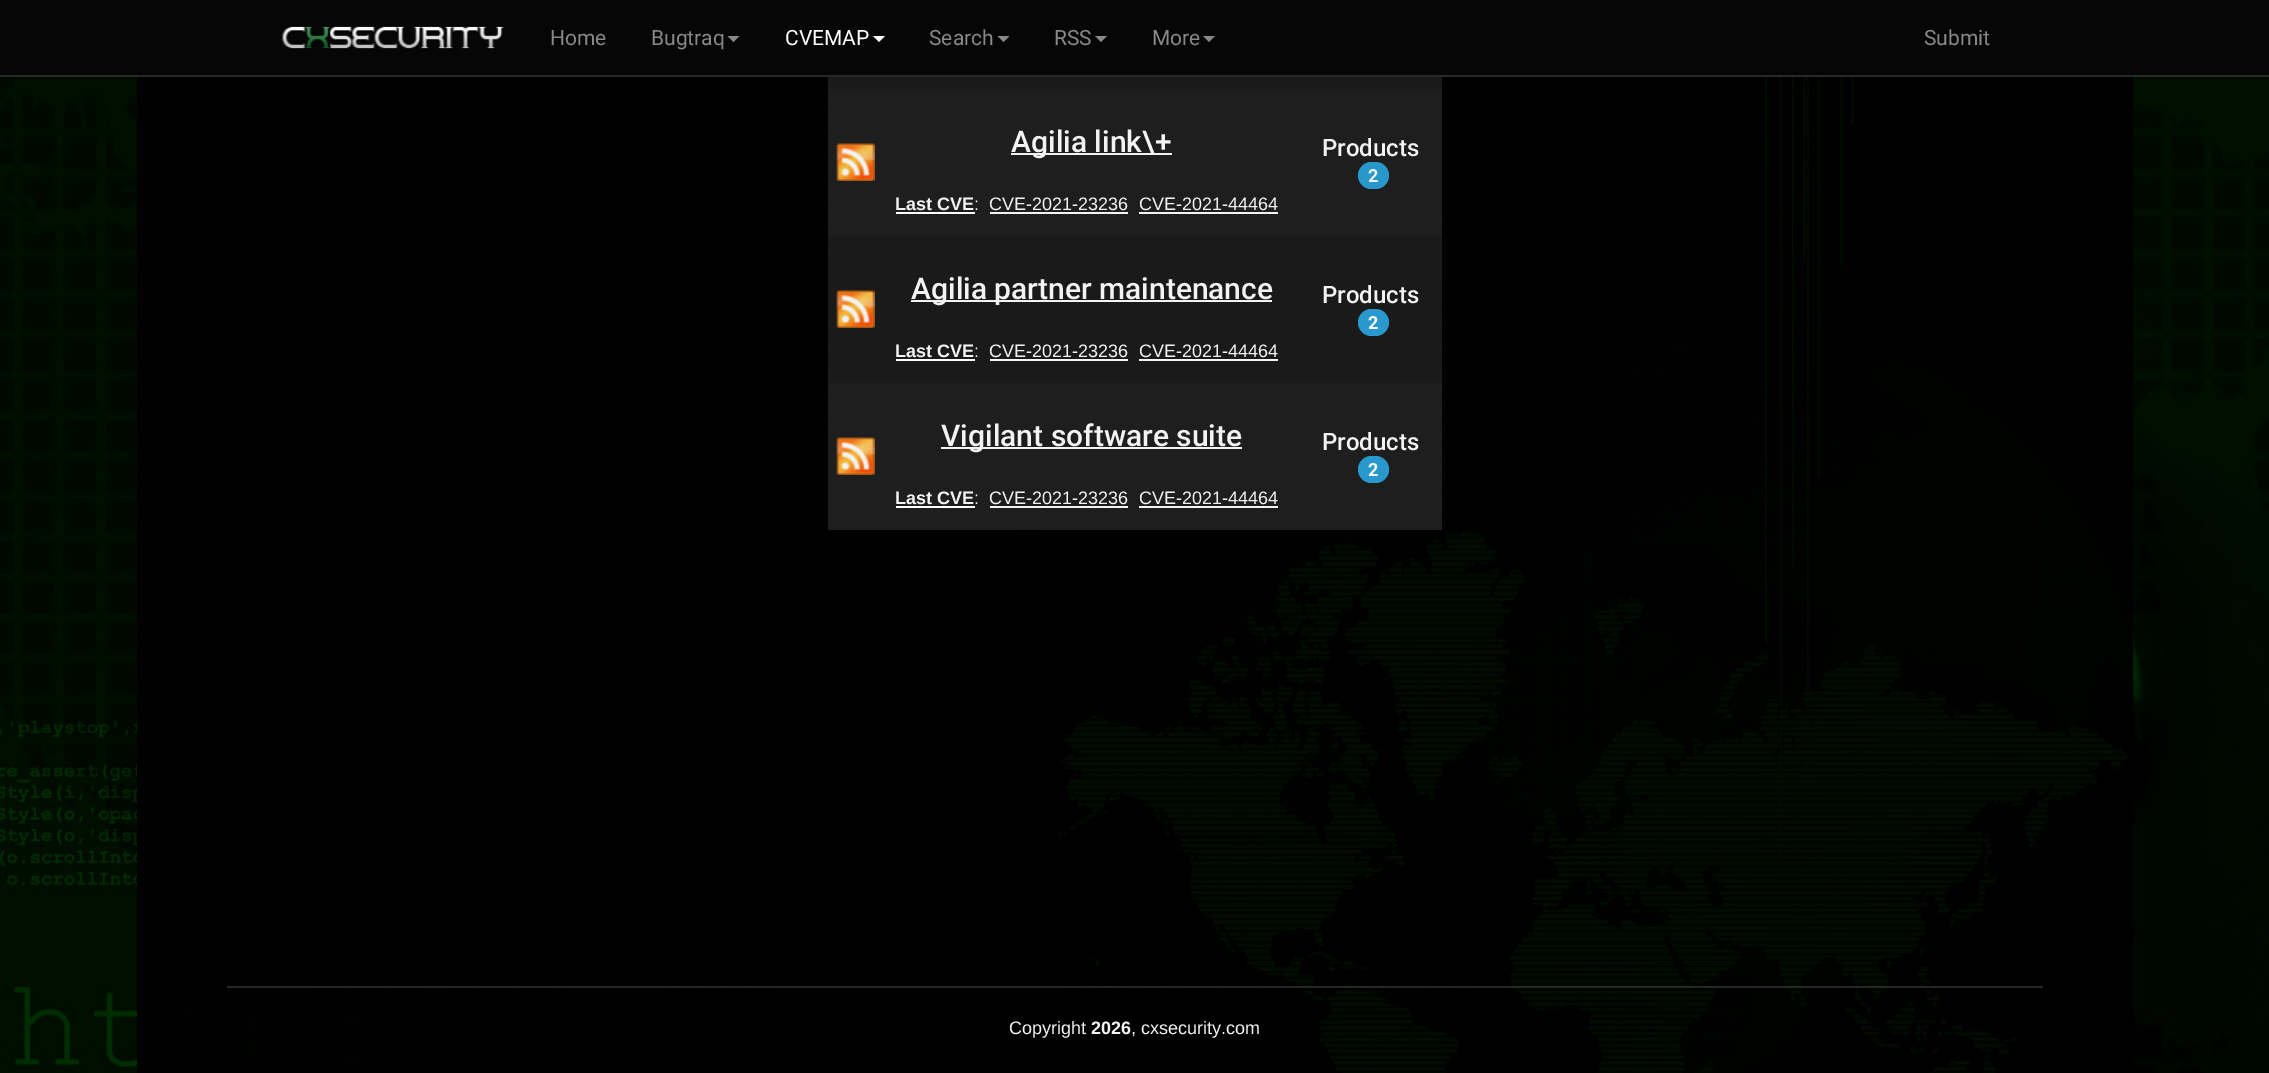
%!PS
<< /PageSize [2269 1073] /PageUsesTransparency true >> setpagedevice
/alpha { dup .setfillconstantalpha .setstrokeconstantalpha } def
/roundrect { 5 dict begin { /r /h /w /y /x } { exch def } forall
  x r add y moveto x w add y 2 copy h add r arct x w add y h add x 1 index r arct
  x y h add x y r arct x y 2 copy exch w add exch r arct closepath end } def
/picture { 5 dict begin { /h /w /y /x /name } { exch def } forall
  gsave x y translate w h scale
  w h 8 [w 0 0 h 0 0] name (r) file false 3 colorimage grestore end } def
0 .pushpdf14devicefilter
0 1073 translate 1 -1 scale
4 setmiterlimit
1 setgray
0 0 2269 1073 rectfill
(img1.rgb) 0 77 2269 996 picture
0.024 setgray
0 0 2269 75 rectfill
0.157 setgray
0 75 2269 2 rectfill
(img2.rgb) 282 26 222 23 picture
/Roboto-Regular [21 0 0 -21 0 0] selectfont
0.533 setgray
550 45 moveto (Home) show
651 45 moveto (Bugtraq) show
newpath 727.5 36 moveto 739.5 36 lineto 733.5 42 lineto closepath fill
1 setgray
785 45 moveto (CVEMAP) show
newpath 873 36 moveto 885 36 lineto 879 42 lineto closepath fill
0.533 setgray
929 45 moveto (Search) show
newpath 997.5 36 moveto 1009.5 36 lineto 1003.5 42 lineto closepath fill
1054 45 moveto (RSS) show
newpath 1095 36 moveto 1107 36 lineto 1101 42 lineto closepath fill
1152 45 moveto (More) show
newpath 1203 36 moveto 1215 36 lineto 1209 42 lineto closepath fill
1924 45 moveto (Submit) show
0.95 alpha
0 setgray
137 77 90 996 rectfill
227 77 1816 996 rectfill
1 alpha
0.102 setgray
828 77 614 12 rectfill
0.118 setgray
828 89 614 147 rectfill
(img3.rgb) 836 143 39 38 picture
0.949 0.953 0.949 setrgbcolor
1011 153 161 2 rectfill
/Roboto-Medium [30 0 0 -30 0 0] selectfont
1011 152 moveto (Agilia link\\+) show
/LiberationSans-Bold [18 0 0 -18 0 0] selectfont
895 210 moveto (Last CVE) show
0.996 setgray
896 212 79 2 rectfill
/LiberationSans-Regular [18 0 0 -18 0 0] selectfont
0.949 0.953 0.949 setrgbcolor
974 210 moveto (:) show
989 210 moveto (CVE-2021-23236) show
0.957 setgray
990 212 138 2 rectfill
0.949 0.953 0.949 setrgbcolor
1139 210 moveto (CVE-2021-44464) show
0.957 setgray
1139 212 139 2 rectfill
/Roboto-Medium [24 0 0 -24 0 0] selectfont
0.949 0.953 0.949 setrgbcolor
1322 156 moveto (Products) show
0.157 0.596 0.796 setrgbcolor
1358 162 31 27 13.5 roundrect fill
/Roboto-Bold [18 0 0 -18 0 0] selectfont
0.949 0.953 0.949 setrgbcolor
1368 182 moveto (2) show
0.102 setgray
828 236 614 147 rectfill
(img4.rgb) 836 290 39 38 picture
0.957 setgray
911 300 361 2 rectfill
/Roboto-Medium [30 0 0 -30 0 0] selectfont
0.949 0.953 0.949 setrgbcolor
911 299 moveto (Agilia partner maintenance) show
/LiberationSans-Bold [18 0 0 -18 0 0] selectfont
895 357 moveto (Last CVE) show
0.996 setgray
896 359 79 2 rectfill
/LiberationSans-Regular [18 0 0 -18 0 0] selectfont
0.949 0.953 0.949 setrgbcolor
974 357 moveto (:) show
989 357 moveto (CVE-2021-23236) show
0.957 setgray
990 359 138 2 rectfill
0.949 0.953 0.949 setrgbcolor
1139 357 moveto (CVE-2021-44464) show
0.957 setgray
1139 359 139 2 rectfill
/Roboto-Medium [24 0 0 -24 0 0] selectfont
0.949 0.953 0.949 setrgbcolor
1322 303 moveto (Products) show
0.161 0.596 0.804 setrgbcolor
1358 309 31 27 13.5 roundrect fill
/Roboto-Bold [18 0 0 -18 0 0] selectfont
0.957 0.98 0.992 setrgbcolor
1368 329 moveto (2) show
0.118 setgray
828 383 614 147 rectfill
(img3.rgb) 836 437 39 38 picture
0.957 setgray
941 447 301 2 rectfill
/Roboto-Medium [30 0 0 -30 0 0] selectfont
0.949 0.953 0.949 setrgbcolor
941 446 moveto (Vigilant software suite) show
/LiberationSans-Bold [18 0 0 -18 0 0] selectfont
895 504 moveto (Last CVE) show
0.996 setgray
896 506 79 2 rectfill
/LiberationSans-Regular [18 0 0 -18 0 0] selectfont
0.949 0.953 0.949 setrgbcolor
974 504 moveto (:) show
989 504 moveto (CVE-2021-23236) show
0.957 setgray
990 506 138 2 rectfill
0.949 0.953 0.949 setrgbcolor
1139 504 moveto (CVE-2021-44464) show
0.957 setgray
1139 506 139 2 rectfill
/Roboto-Medium [24 0 0 -24 0 0] selectfont
0.949 0.953 0.949 setrgbcolor
1322 450 moveto (Products) show
0.161 0.6 0.804 setrgbcolor
1358 456 31 27 13.5 roundrect fill
/Roboto-Bold [18 0 0 -18 0 0] selectfont
0.957 0.98 0.992 setrgbcolor
1368 476 moveto (2) show
0.95 alpha
0.157 setgray
227 986 1816 2 rectfill
/LiberationSans-Regular [18 0 0 -18 0 0] selectfont
1 alpha
0.949 0.953 0.949 setrgbcolor
1009 1034 moveto (Copyright) show
/LiberationSans-Bold [18 0 0 -18 0 0] selectfont
1091 1034 moveto (2026) show
/LiberationSans-Regular [18 0 0 -18 0 0] selectfont
1131 1034 moveto (, cxsecurity.com) show
0.95 alpha
0 setgray
2043 77 90 996 rectfill
.poppdf14devicefilter showpage
